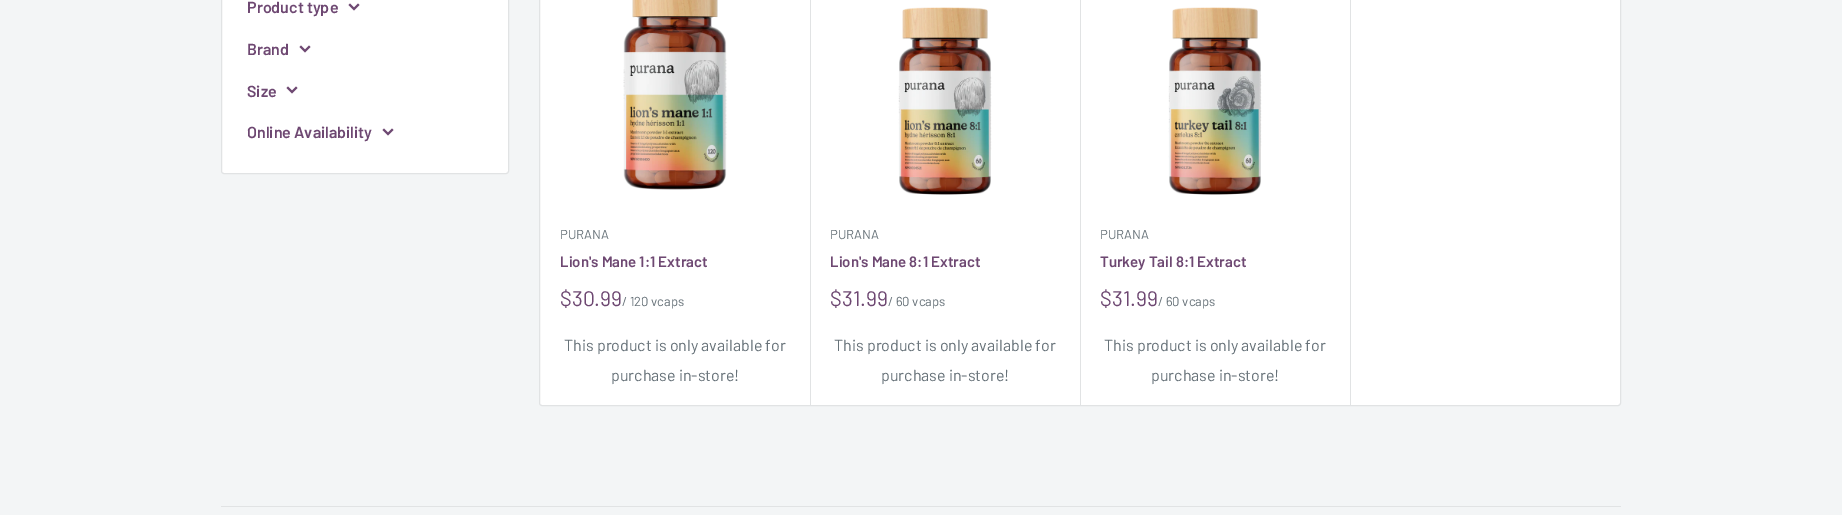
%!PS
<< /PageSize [1842 515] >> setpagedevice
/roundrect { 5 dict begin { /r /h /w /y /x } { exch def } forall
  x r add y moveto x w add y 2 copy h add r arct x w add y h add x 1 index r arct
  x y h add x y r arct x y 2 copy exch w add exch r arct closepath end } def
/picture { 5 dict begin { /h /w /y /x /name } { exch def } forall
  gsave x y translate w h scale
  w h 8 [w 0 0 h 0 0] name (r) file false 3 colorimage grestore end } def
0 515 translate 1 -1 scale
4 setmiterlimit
0.953 0.961 0.965 setrgbcolor
0 0 1842 515 rectfill
1 setgray
221.5 -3.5 287 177 2.5 roundrect gsave fill grestore
0.882 0.89 0.894 setrgbcolor
stroke
/Barlow-SemiBold [16 0 0 -16 0 0] selectfont
0.431 0.282 0.447 setrgbcolor
247 13 moveto (Product type) show
2 setlinewidth
2 setlinecap
newpath 358 5 moveto 354 9 lineto 350 5 lineto 309 47 moveto 305 51 lineto 301 47 lineto stroke
247 55 moveto (Brand) show
247 97 moveto (Size) show
newpath 296 88 moveto 292 92 lineto 288 88 lineto stroke
247 138 moveto (Online Availability) show
newpath 392 130 moveto 388 134 lineto 384 130 lineto stroke
1 setgray
539.5 -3.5 1081 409 2.5 roundrect gsave fill grestore
0.882 0.89 0.894 setrgbcolor
1 setlinewidth
0 setlinecap
stroke
(img1.rgb) 623 0 104 190 picture
810 0 1 405 rectfill
/Barlow-Regular [13 0 0 -13 0 0] selectfont
0.404 0.447 0.475 setrgbcolor
560 239 moveto (PURANA) show
/Barlow-SemiBold [15 0 0 -15 0 0] selectfont
0.431 0.282 0.447 setrgbcolor
560 267 moveto (Lion's Mane 1:1 Extract) show
/Barlow-Regular [21 0 0 -21 0 0] selectfont
560 306 moveto ($30.99) show
/Barlow-Regular [13 0 0 -13 0 0] selectfont
0.404 0.447 0.475 setrgbcolor
622 306 moveto (/ 120 vcaps) show
/Barlow-Regular [16 0 0 -16 0 0] selectfont
564 351 moveto (This product is only available for) show
611 381 moveto (purchase in-store!) show
(img2.rgb) 898 7 94 188 picture
0.882 0.89 0.894 setrgbcolor
1080 0 1 405 rectfill
/Barlow-Regular [13 0 0 -13 0 0] selectfont
0.404 0.447 0.475 setrgbcolor
830 239 moveto (PURANA) show
/Barlow-SemiBold [15 0 0 -15 0 0] selectfont
0.431 0.282 0.447 setrgbcolor
830 267 moveto (Lion's Mane 8:1 Extract) show
/Barlow-Regular [21 0 0 -21 0 0] selectfont
830 306 moveto ($31.99) show
/Barlow-Regular [13 0 0 -13 0 0] selectfont
0.404 0.447 0.475 setrgbcolor
888 306 moveto (/ 60 vcaps) show
/Barlow-Regular [16 0 0 -16 0 0] selectfont
834 351 moveto (This product is only available for) show
881 381 moveto (purchase in-store!) show
(img3.rgb) 1168 7 94 188 picture
0.882 0.89 0.894 setrgbcolor
1350 0 1 405 rectfill
/Barlow-Regular [13 0 0 -13 0 0] selectfont
0.404 0.447 0.475 setrgbcolor
1100 239 moveto (PURANA) show
/Barlow-SemiBold [15 0 0 -15 0 0] selectfont
0.431 0.282 0.447 setrgbcolor
1100 267 moveto (Turkey Tail 8:1 Extract) show
/Barlow-Regular [21 0 0 -21 0 0] selectfont
1100 306 moveto ($31.99) show
/Barlow-Regular [13 0 0 -13 0 0] selectfont
0.404 0.447 0.475 setrgbcolor
1158 306 moveto (/ 60 vcaps) show
/Barlow-Regular [16 0 0 -16 0 0] selectfont
1104 351 moveto (This product is only available for) show
1151 381 moveto (purchase in-store!) show
0.882 0.89 0.894 setrgbcolor
221 506 1400 1 rectfill
showpage
